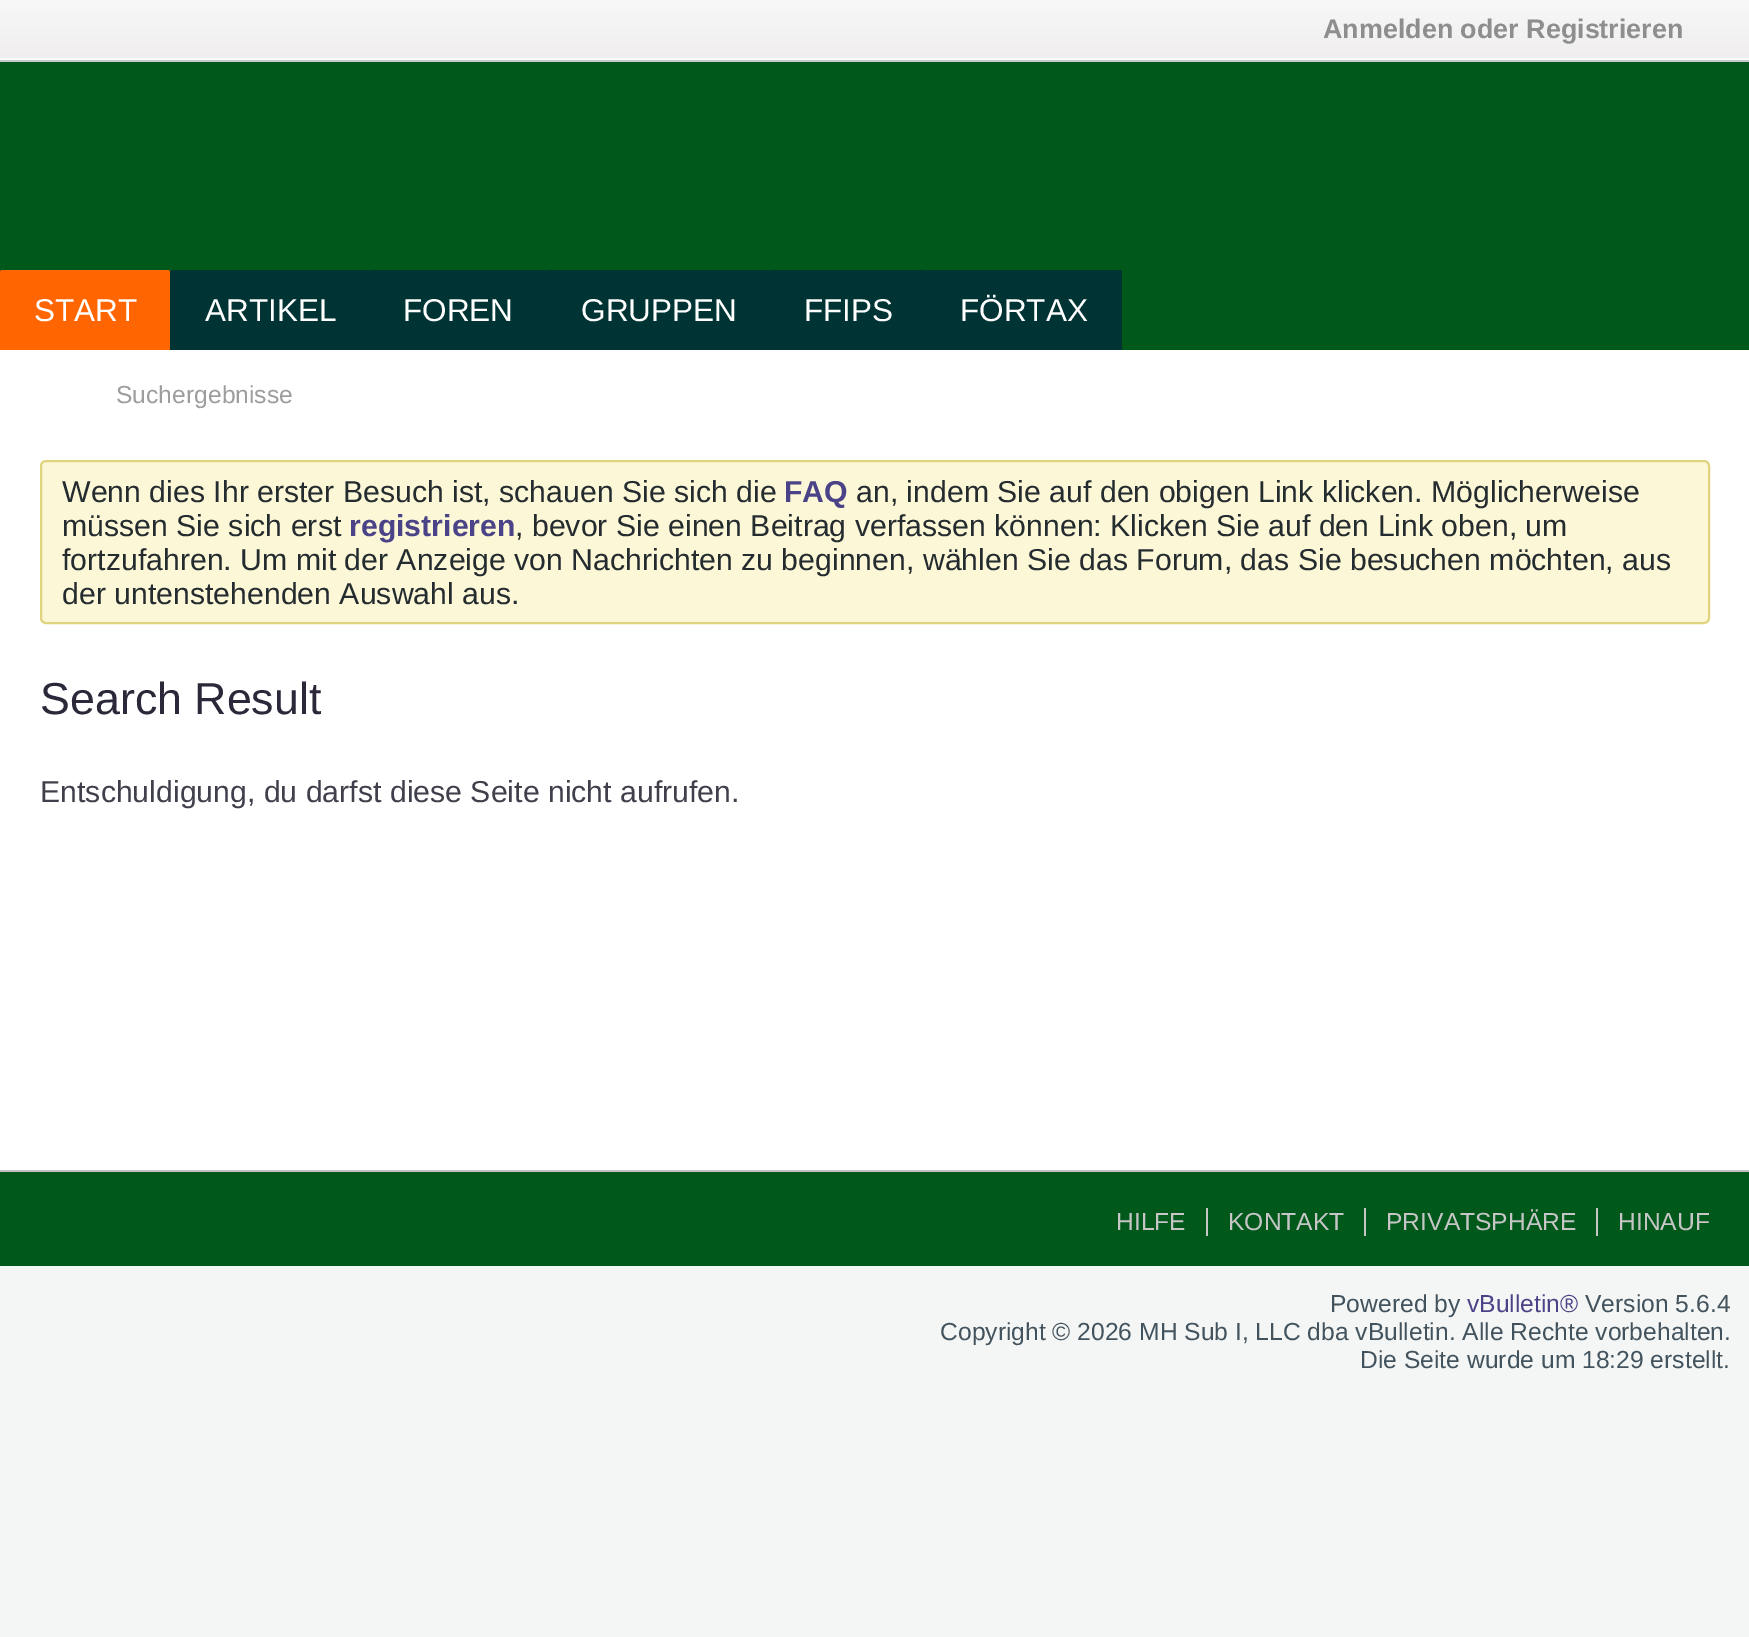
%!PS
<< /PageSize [1749 1637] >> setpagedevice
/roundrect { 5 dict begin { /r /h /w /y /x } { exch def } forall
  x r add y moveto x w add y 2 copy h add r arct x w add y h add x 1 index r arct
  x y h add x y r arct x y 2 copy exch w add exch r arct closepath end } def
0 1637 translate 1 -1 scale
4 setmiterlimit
0.953 0.965 0.957 setrgbcolor
0 0 1749 1637 rectfill
gsave newpath 0 0 moveto 1749 0 lineto 1749 58 lineto 0 58 lineto closepath clip newpath
<< /ShadingType 2 /ColorSpace /DeviceRGB /Coords [875 0 875 62] /Extend [true true] /Function << /FunctionType 2 /Domain [0 1] /C0 [0.973 0.973 0.973] /C1 [0.937 0.929 0.933] /N 1 >> >> shfill grestore
/LiberationSans-Bold [26.9 0 0 -26.9 0 0] selectfont
0.557 setgray
1323 38 moveto (Anmelden oder Registrieren) show
0.98 setgray
0 58 1749 2 rectfill
0.78 0.784 0.788 setrgbcolor
0 60 1749 2 rectfill
0 0.349 0.106 setrgbcolor
0 62 1749 288 rectfill
1 0.396 0 setrgbcolor
newpath 2 270 moveto 168 270 lineto 169 270 170 271 170 272 curveto 170 350 lineto 0 350 lineto 0 272 lineto 0 271 1 270 2 270 curveto closepath fill
/LiberationSans-Regular [31.5 0 0 -31.5 0 0] selectfont
1 setgray
34 321 moveto (START) show
0 0.2 0.2 setrgbcolor
newpath 172 270 moveto 368 270 lineto 369 270 370 271 370 272 curveto 370 350 lineto 170 350 lineto 170 272 lineto 170 271 171 270 172 270 curveto closepath fill
1 setgray
205 321 moveto (ARTIKEL) show
0 0.2 0.2 setrgbcolor
newpath 372 270 moveto 544 270 lineto 545 270 546 271 546 272 curveto 546 350 lineto 370 350 lineto 370 272 lineto 370 271 371 270 372 270 curveto closepath fill
1 setgray
403 321 moveto (FOREN) show
0 0.2 0.2 setrgbcolor
newpath 548 270 moveto 768 270 lineto 769 270 770 271 770 272 curveto 770 350 lineto 546 350 lineto 546 272 lineto 546 271 547 270 548 270 curveto closepath fill
1 setgray
581 321 moveto (GRUPPEN) show
0 0.2 0.2 setrgbcolor
newpath 772 270 moveto 924 270 lineto 925 270 926 271 926 272 curveto 926 350 lineto 770 350 lineto 770 272 lineto 770 271 771 270 772 270 curveto closepath fill
1 setgray
804 321 moveto (FFIPS) show
0 0.2 0.2 setrgbcolor
newpath 928 270 moveto 1120 270 lineto 1121 270 1122 271 1122 272 curveto 1122 350 lineto 926 350 lineto 926 272 lineto 926 271 927 270 928 270 curveto closepath fill
1 setgray
960 321 moveto (FÖRTAX) show
0 350 1749 820 rectfill
/LiberationSans-Regular [24.65 0 0 -24.65 0 0] selectfont
0.62 0.616 0.616 setrgbcolor
116 403 moveto (Suchergebnisse) show
0.988 0.969 0.843 setrgbcolor
41 461 1668 162 5 roundrect gsave fill grestore
0.882 0.831 0.494 setrgbcolor
2 setlinewidth
stroke
/LiberationSans-Regular [30.25 0 0 -30.25 0 0] selectfont
0.145 0.173 0.184 setrgbcolor
62 502 moveto (Wenn dies Ihr erster Besuch ist, schauen Sie sich die) show
/LiberationSans-Bold [30.25 0 0 -30.25 0 0] selectfont
0.294 0.263 0.529 setrgbcolor
784 502 moveto (FAQ) show
/LiberationSans-Regular [30.25 0 0 -30.25 0 0] selectfont
0.145 0.173 0.184 setrgbcolor
856 502 moveto (an, indem Sie auf den obigen Link klicken. Möglicherweise) show
62 536 moveto (müssen Sie sich erst) show
/LiberationSans-Bold [30.25 0 0 -30.25 0 0] selectfont
0.294 0.263 0.529 setrgbcolor
349 536 moveto (registrieren) show
/LiberationSans-Regular [30.25 0 0 -30.25 0 0] selectfont
0.145 0.173 0.184 setrgbcolor
515 536 moveto (, bevor Sie einen Beitrag verfassen können: Klicken Sie auf den Link oben, um) show
62 570 moveto (fortzufahren. Um mit der Anzeige von Nachrichten zu beginnen, wählen Sie das Forum, das Sie besuchen möchten, aus) show
62 604 moveto (der untenstehenden Auswahl aus.) show
/LiberationSans-Regular [44.75 0 0 -44.75 0 0] selectfont
0.173 0.157 0.227 setrgbcolor
40 714 moveto (Search Result) show
/LiberationSans-Regular [30.25 0 0 -30.25 0 0] selectfont
0.251 0.251 0.298 setrgbcolor
40 802 moveto (Entschuldigung, du darfst diese Seite nicht aufrufen.) show
0 0.349 0.106 setrgbcolor
0 1172 1749 94 rectfill
0.761 setgray
0 1170 1749 2 rectfill
/LiberationSans-Regular [24.65 0 0 -24.65 0 0] selectfont
0.776 setgray
1116 1230 moveto (HILFE) show
1228 1230 moveto (KONTAKT) show
1206 1208 2 28 rectfill
1386 1230 moveto (PRIVATSPHÄRE) show
1364 1208 2 28 rectfill
1618 1230 moveto (HINAUF) show
1596 1208 2 28 rectfill
0.263 0.325 0.369 setrgbcolor
1330 1312 moveto (Powered by) show
0.294 0.263 0.529 setrgbcolor
1467 1312 moveto (vBulletin®) show
0.263 0.325 0.369 setrgbcolor
1585 1312 moveto (Version 5.6.4) show
940 1340 moveto (Copyright © 2026 MH Sub I, LLC dba vBulletin. Alle Rechte vorbehalten.) show
1360 1368 moveto (Die Seite wurde um 18:29 erstellt.) show
showpage
